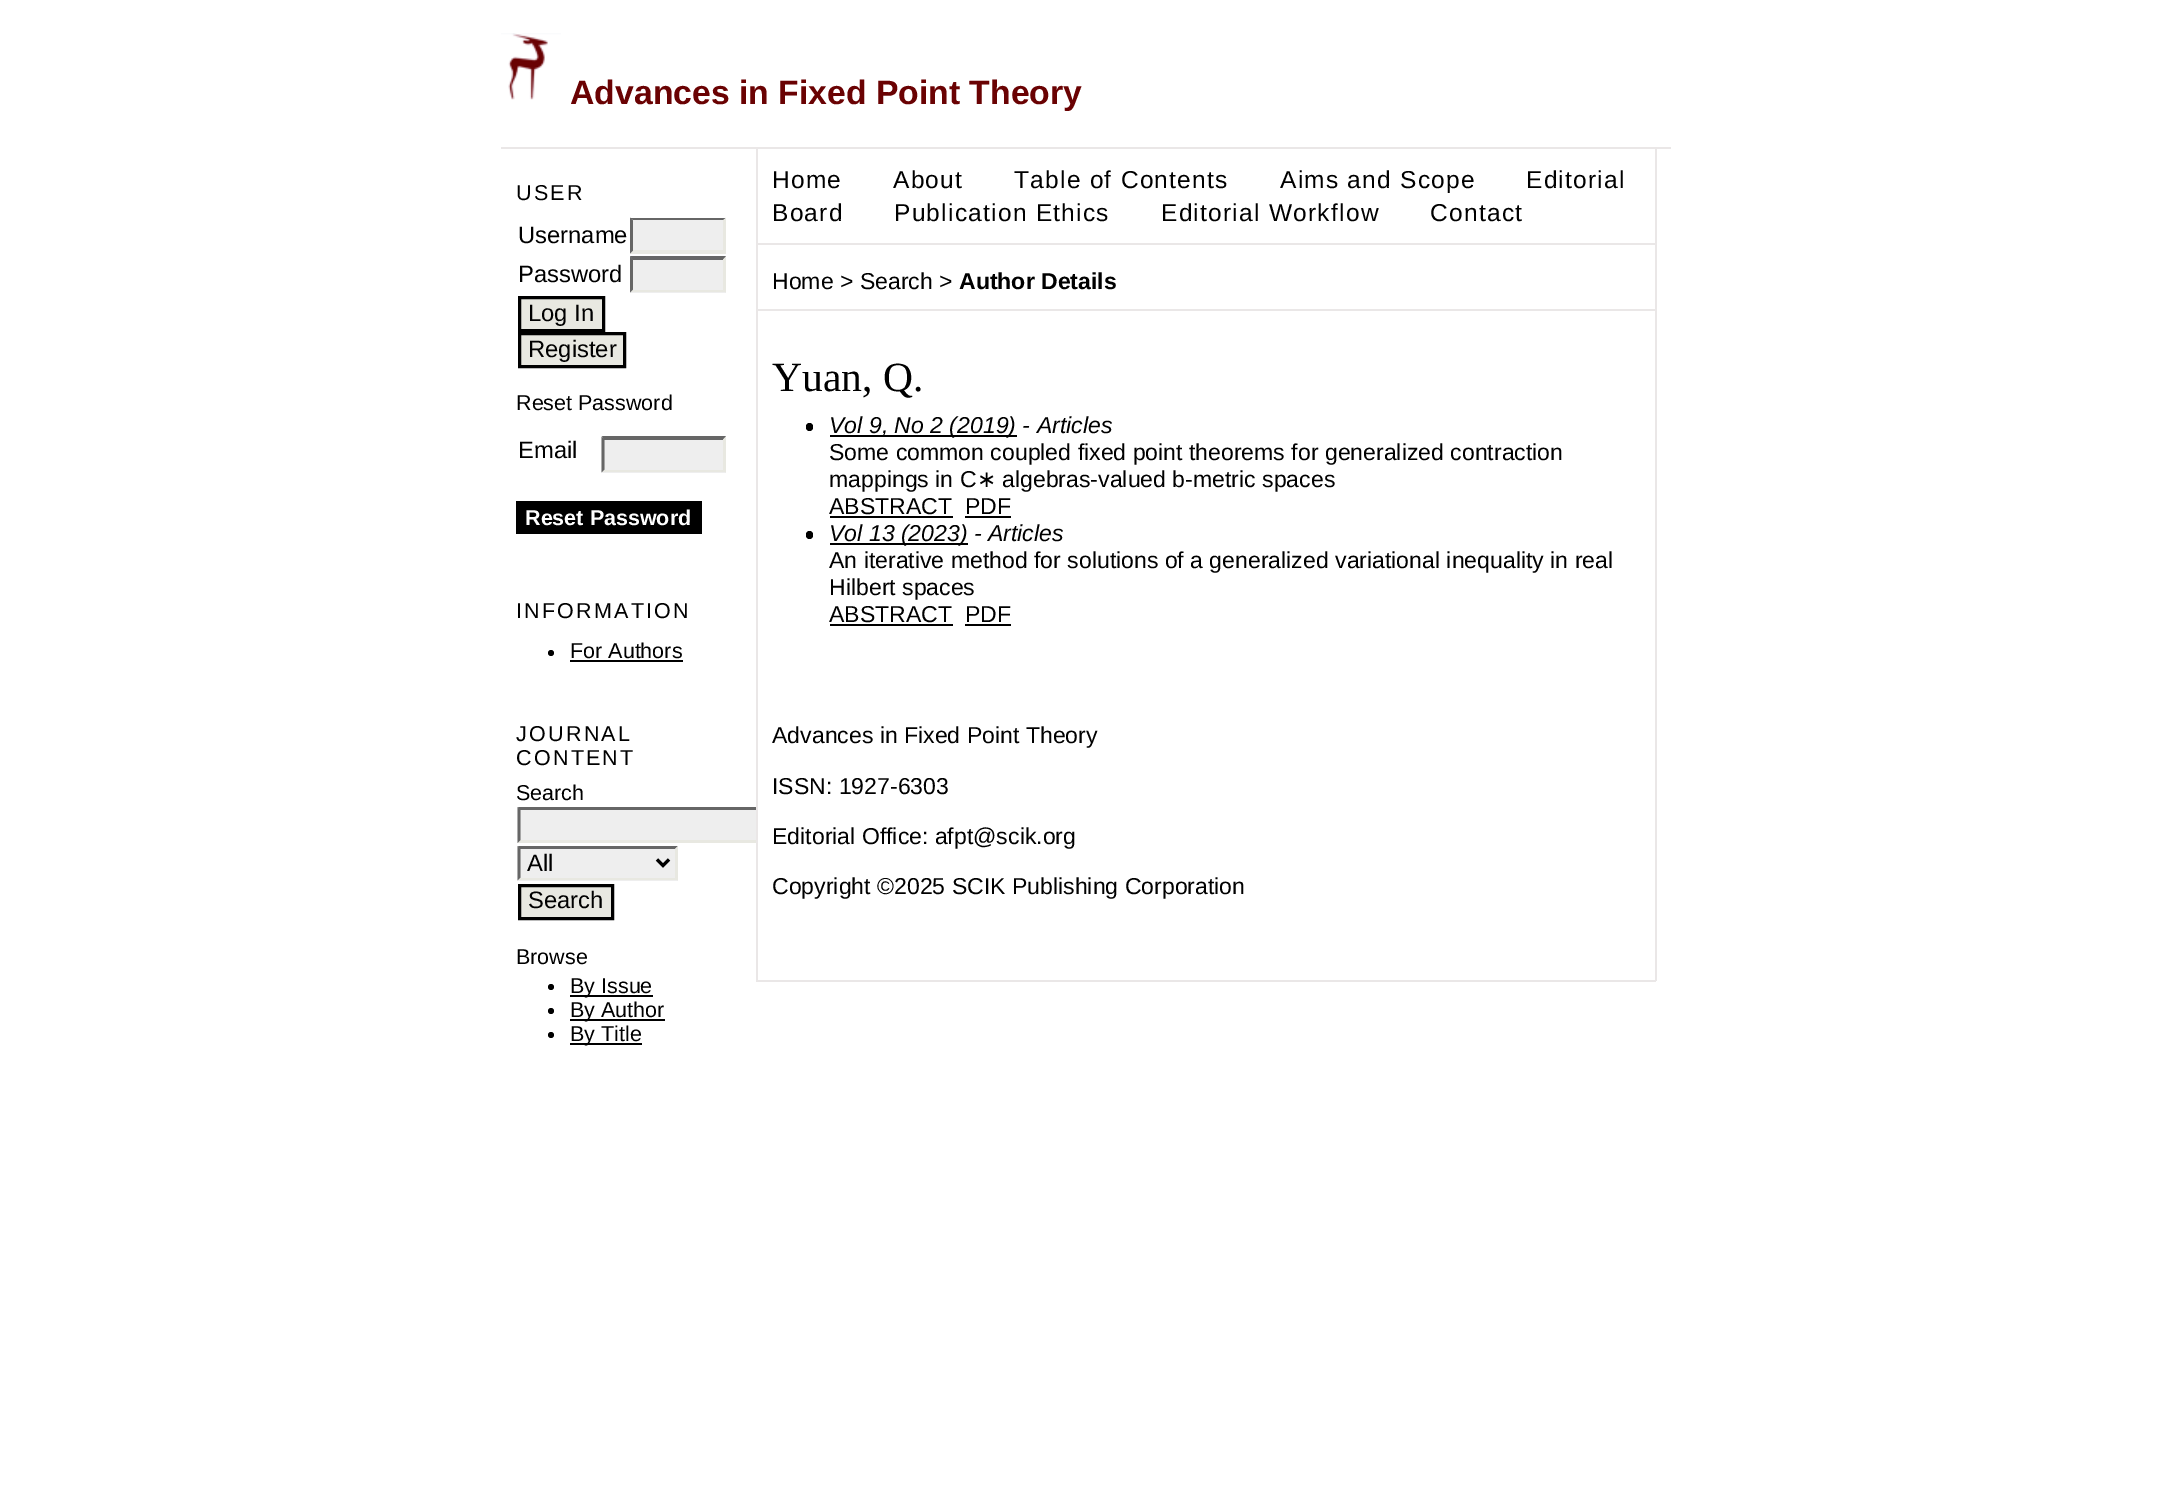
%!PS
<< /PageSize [2171 1502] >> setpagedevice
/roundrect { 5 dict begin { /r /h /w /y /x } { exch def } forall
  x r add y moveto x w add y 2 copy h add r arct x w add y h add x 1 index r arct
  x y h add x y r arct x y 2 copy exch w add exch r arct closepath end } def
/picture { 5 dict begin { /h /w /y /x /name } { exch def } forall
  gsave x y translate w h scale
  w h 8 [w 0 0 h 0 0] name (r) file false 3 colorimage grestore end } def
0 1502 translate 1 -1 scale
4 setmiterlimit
1 setgray
0 0 2171 1502 rectfill
0.918 0.906 0.906 setrgbcolor
501 147 1170 2 rectfill
(img1.rgb) 501 33 60 67 picture
/LiberationSans-Bold [33.75 0 0 -33.75 0 0] selectfont
0.416 0.008 0.012 setrgbcolor
570 104 moveto (Advances in Fixed Point Theory) show
/LiberationSans-Regular [21.5 0 0 -21.5 0 0] selectfont
0 setgray
516 200 moveto 2.25 0 (USER) ashow
/LiberationSans-Regular [23.75 0 0 -23.75 0 0] selectfont
518 243 moveto (Username) show
0.933 setgray
630 218 96 36 rectfill
0.4 setgray
newpath 630 218 moveto 726 218 lineto 723 220 lineto 633 220 lineto closepath fill
0.91 0.91 0.882 setrgbcolor
newpath 726 217.5 moveto 726 253.5 lineto 723 250.5 lineto 723 220.5 lineto closepath fill
newpath 726 254 moveto 630 254 lineto 633 250 lineto 723 250 lineto closepath fill
0.4 setgray
newpath 630 253.5 moveto 630 217.5 lineto 633 220.5 lineto 633 250.5 lineto closepath fill
0 setgray
518 282 moveto (Password) show
0.933 setgray
630 257 96 36 rectfill
0.4 setgray
newpath 630 256 moveto 726 256 lineto 723 260 lineto 633 260 lineto closepath fill
0.91 0.91 0.882 setrgbcolor
newpath 726 256.5 moveto 726 292.5 lineto 723 289.5 lineto 723 259.5 lineto closepath fill
newpath 726 292 moveto 630 292 lineto 633 290 lineto 723 290 lineto closepath fill
0.4 setgray
newpath 630 292.5 moveto 630 256.5 lineto 633 259.5 lineto 633 289.5 lineto closepath fill
0.91 0.91 0.882 setrgbcolor
newpath 519.5 297.5 moveto 603.5 297.5 lineto 603.5 330.5 lineto 519.5 330.5 lineto closepath gsave fill grestore
0 setgray
3 setlinewidth
stroke
528 321 moveto (Log In) show
0.91 0.91 0.882 setrgbcolor
newpath 519.5 333.5 moveto 624.5 333.5 lineto 624.5 366.5 lineto 519.5 366.5 lineto closepath gsave fill grestore
0 setgray
stroke
528 357 moveto (Register) show
/LiberationSans-Regular [21.5 0 0 -21.5 0 0] selectfont
516 410 moveto (Reset Password) show
/LiberationSans-Regular [23.75 0 0 -23.75 0 0] selectfont
518 458 moveto (Email) show
0.933 setgray
602 437 124 36 rectfill
0.4 setgray
newpath 602 436 moveto 726 436 lineto 723 440 lineto 604 440 lineto closepath fill
0.91 0.91 0.882 setrgbcolor
newpath 726 436.5 moveto 726 472.5 lineto 723 469.5 lineto 723 439.5 lineto closepath fill
newpath 726 472 moveto 602 472 lineto 604 470 lineto 723 470 lineto closepath fill
0.4 setgray
newpath 601.5 472.5 moveto 601.5 436.5 lineto 604.5 439.5 lineto 604.5 469.5 lineto closepath fill
0 setgray
516 501 186 33 rectfill
/LiberationSans-Bold [21.5 0 0 -21.5 0 0] selectfont
1 setgray
525 525 moveto (Reset Password) show
/LiberationSans-Regular [21.5 0 0 -21.5 0 0] selectfont
0 setgray
516 618 moveto 2.25 0 (INFORMATION) ashow
newpath 551 653 3 0 360 arc closepath fill
570 658 moveto (For Authors) show
570 660 113 2 rectfill
516 741 moveto 2.25 0 (JOURNAL) ashow
516 765 moveto 2.25 0 (CONTENT) ashow
516 800 moveto (Search) show
0.933 setgray
518 807 238 36 rectfill
0.4 setgray
newpath 518 807 moveto 766 807 lineto 764 810 lineto 520 810 lineto closepath fill
0.91 0.91 0.882 setrgbcolor
newpath 766 843 moveto 518 843 lineto 520 840 lineto 764 840 lineto closepath fill
0.4 setgray
newpath 517.5 843 moveto 517.5 807 lineto 520.5 810 lineto 520.5 840 lineto closepath fill
0.933 setgray
518 846 160 35 rectfill
0.4 setgray
newpath 518 846 moveto 678 846 lineto 675 849 lineto 520 849 lineto closepath fill
0.91 0.91 0.882 setrgbcolor
newpath 678 846 moveto 678 880.5 lineto 675 877.5 lineto 675 849 lineto closepath fill
newpath 678 880 moveto 518 880 lineto 520 878 lineto 675 878 lineto closepath fill
0.4 setgray
newpath 517.5 880.5 moveto 517.5 846 lineto 520.5 849 lineto 520.5 877.5 lineto closepath fill
0 setgray
newpath 657 859.5 moveto 663 865.5 lineto 669 859.5 lineto stroke
/LiberationSans-Regular [23.75 0 0 -23.75 0 0] selectfont
527 871 moveto (All) show
0.91 0.91 0.882 setrgbcolor
newpath 519.5 885.5 moveto 612.5 885.5 lineto 612.5 918.5 lineto 519.5 918.5 lineto closepath gsave fill grestore
0 setgray
stroke
528 908 moveto (Search) show
/LiberationSans-Regular [21.5 0 0 -21.5 0 0] selectfont
516 964 moveto (Browse) show
newpath 551 987 3 0 360 arc closepath fill
570 995 83 2 rectfill
570 993 moveto (By Issue) show
newpath 551 1011 3 0 360 arc closepath fill
570 1019 95 2 rectfill
570 1017 moveto (By Author) show
newpath 551 1035 3 0 360 arc closepath fill
570 1043 72 2 rectfill
570 1041 moveto (By Title) show
1 setgray
758 807 8 36 rectfill
0.918 0.906 0.906 setrgbcolor
1655 149 2 832 rectfill
756 980 900 2 rectfill
756 149 2 832 rectfill
758 243 897 2 rectfill
/LiberationSans-Regular [24.5 0 0 -24.5 0 0] selectfont
0 setgray
772 188 moveto 1.25 0 (Home) ashow
893 188 moveto 1.25 0 (About) ashow
1014 188 moveto 1.25 0 (Table of Contents) ashow
1280 188 moveto 1.25 0 (Aims and Scope) ashow
1526 188 moveto 1.25 0 (Editorial) ashow
772 221 moveto 1.25 0 (Board) ashow
894 221 moveto 1.25 0 (Publication Ethics) ashow
1161 221 moveto 1.25 0 (Editorial Workflow) ashow
1430 221 moveto 1.25 0 (Contact) ashow
0.918 0.906 0.906 setrgbcolor
758 309 897 2 rectfill
/LiberationSans-Regular [23.05 0 0 -23.05 0 0] selectfont
0 setgray
772 289 moveto (Home > Search >) show
/LiberationSans-Bold [23.05 0 0 -23.05 0 0] selectfont
959 289 moveto (Author Details) show
/LiberationSerif-Regular [41.5 0 0 -41.5 0 0] selectfont
772 391 moveto (Yuan, Q.) show
806 423 7 8 3.5 roundrect fill
830 435 187 2 rectfill
/LiberationSans-Italic [23.05 0 0 -23.05 0 0] selectfont
829 433 moveto (Vol 9, No 2 \(2019\) - Articles) show
/LiberationSans-Regular [23.05 0 0 -23.05 0 0] selectfont
829 460 moveto (Some common coupled fixed point theorems for generalized contraction) show
829 487 moveto (mappings in C) show
/DejaVuSans-Regular [23.05 0 0 -23.05 0 0] selectfont
977 487 moveto (∗) show
/LiberationSans-Regular [23.05 0 0 -23.05 0 0] selectfont
1002 487 moveto (algebras-valued b-metric spaces) show
829 514 moveto (ABSTRACT) show
830 516 123 2 rectfill
965 514 moveto (PDF) show
965 516 46 2 rectfill
806 531 7 8 3.5 roundrect fill
830 543 138 2 rectfill
/LiberationSans-Italic [23.05 0 0 -23.05 0 0] selectfont
829 541 moveto (Vol 13 \(2023\) - Articles) show
/LiberationSans-Regular [23.05 0 0 -23.05 0 0] selectfont
829 568 moveto (An iterative method for solutions of a generalized variational inequality in real) show
829 595 moveto (Hilbert spaces) show
829 622 moveto (ABSTRACT) show
830 624 123 2 rectfill
965 622 moveto (PDF) show
965 624 46 2 rectfill
772 743 moveto (Advances in Fixed Point Theory) show
772 794 moveto (ISSN: 1927-6303) show
772 844 moveto (Editorial Office: afpt@scik.org) show
772 894 moveto (Copyright ©2025 SCIK Publishing Corporation) show
showpage
